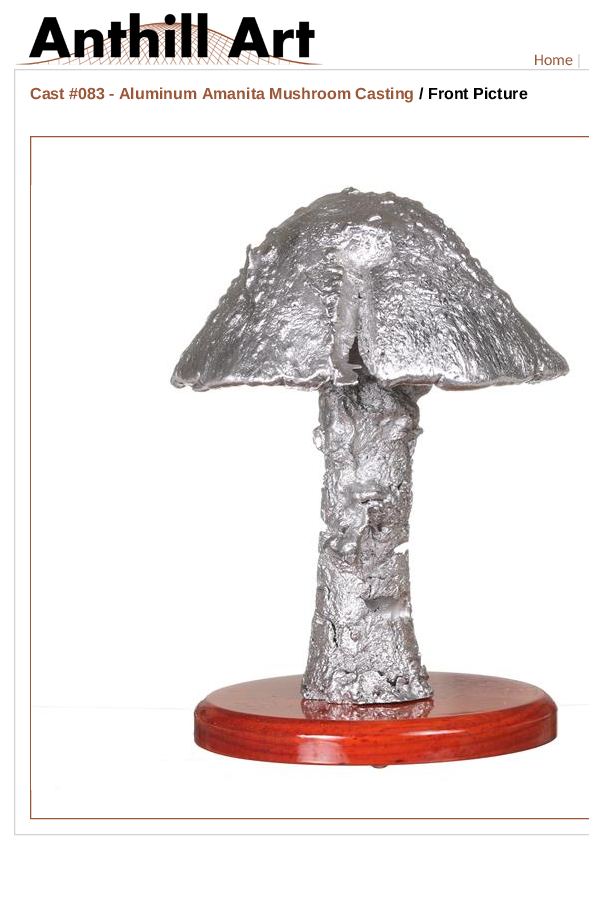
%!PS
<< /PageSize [589 916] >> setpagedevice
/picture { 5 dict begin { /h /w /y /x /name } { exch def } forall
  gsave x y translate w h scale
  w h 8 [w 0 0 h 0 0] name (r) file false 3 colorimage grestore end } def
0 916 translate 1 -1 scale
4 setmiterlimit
1 setgray
0 0 589 916 rectfill
(img1.rgb) 15 13 309 54 picture
/Carlito-Regular [16 0 0 -16 0 0] selectfont
0.608 0.341 0.22 setrgbcolor
534 65 moveto (Home) show
/LiberationSans-Regular [15 0 0 -15 0 0] selectfont
0.831 0.827 0.827 setrgbcolor
577 65 moveto (|) show
14.5 69.5 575 765 rectstroke
/LiberationSans-Bold [16 0 0 -16 0 0] selectfont
0.608 0.341 0.22 setrgbcolor
30 99 moveto (Cast #083 - Aluminum Amanita Mushroom Casting) show
0 setgray
419 99 moveto (/ Front Picture) show
0.608 0.341 0.22 setrgbcolor
30.5 136.5 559 682 rectstroke
(img2.rgb) 31 185 558 605 picture
showpage
